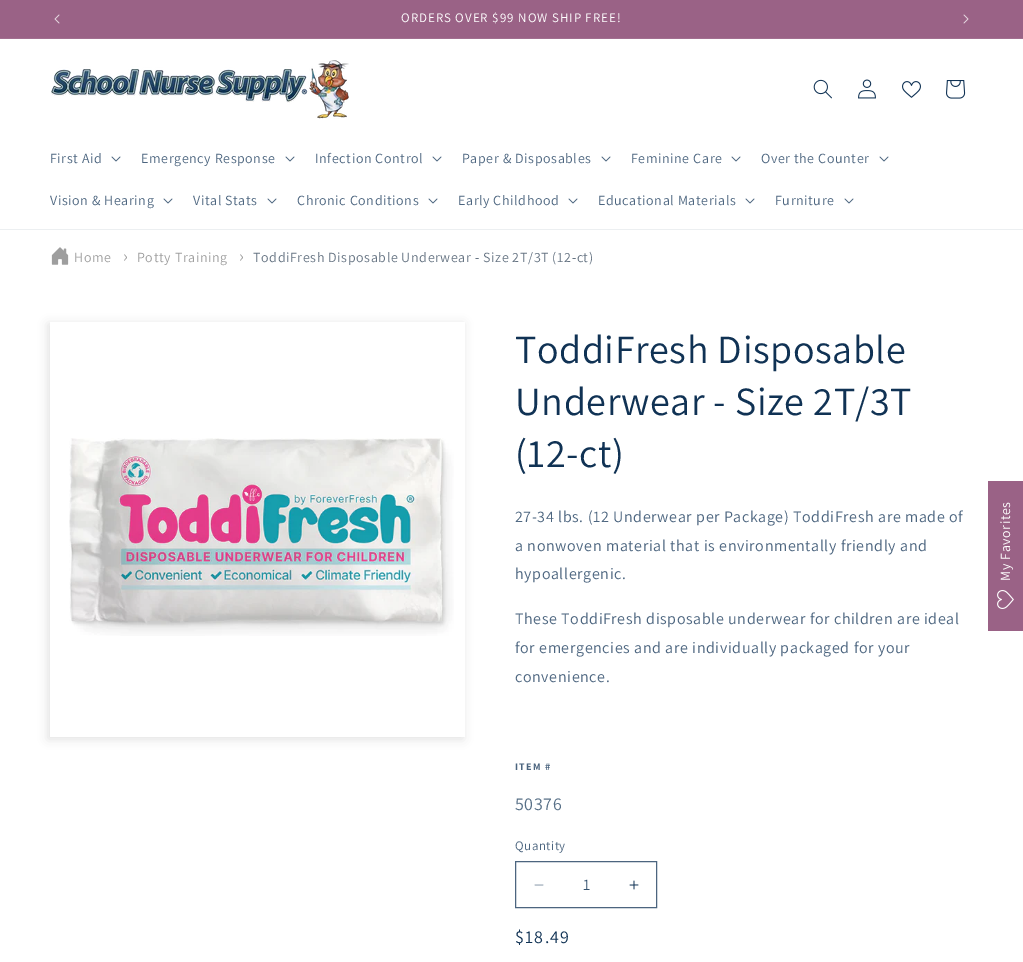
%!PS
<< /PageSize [1023 962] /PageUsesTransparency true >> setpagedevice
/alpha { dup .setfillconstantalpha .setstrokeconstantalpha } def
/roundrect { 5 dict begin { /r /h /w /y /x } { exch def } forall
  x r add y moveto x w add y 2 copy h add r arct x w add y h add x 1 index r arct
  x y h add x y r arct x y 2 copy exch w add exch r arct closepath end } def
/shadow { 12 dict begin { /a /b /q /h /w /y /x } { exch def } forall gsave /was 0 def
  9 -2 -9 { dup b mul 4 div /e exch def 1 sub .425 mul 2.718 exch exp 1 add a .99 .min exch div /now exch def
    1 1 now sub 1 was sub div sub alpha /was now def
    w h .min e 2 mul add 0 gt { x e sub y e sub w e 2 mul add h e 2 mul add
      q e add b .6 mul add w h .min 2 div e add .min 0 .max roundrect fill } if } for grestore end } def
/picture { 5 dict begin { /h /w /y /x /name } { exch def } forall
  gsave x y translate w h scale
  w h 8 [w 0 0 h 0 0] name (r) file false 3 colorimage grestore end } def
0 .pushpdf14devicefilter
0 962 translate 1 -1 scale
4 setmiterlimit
1 setgray
0 0 1023 962 rectfill
0.604 0.384 0.525 setrgbcolor
0 0 1023 38 rectfill
0.635 0.435 0.565 setrgbcolor
0 38 1023 1 rectfill
(img1.rgb) 54 14 6 10 picture
/Assistant-Regular [13 0 0 -13 0 0] selectfont
1 setgray
401 22 moveto 1 0 (ORDERS OVER $99 NOW SHIP FREE!) ashow
(img2.rgb) 963 14 6 10 picture
0.925 0.937 0.945 setrgbcolor
0 229 1023 1 rectfill
(img3.rgb) 51 60 298 59 picture
(img4.rgb) 813 79 19 20 picture
(img5.rgb) 858 79 18 20 picture
(img6.rgb) 902 81 19 17 picture
(img7.rgb) 946 80 20 19 picture
/Assistant-Regular [14 0 0 -14 0 0] selectfont
0.298 0.396 0.498 setrgbcolor
50 163 moveto 0.6 0 (First Aid) ashow
(img8.rgb) 111 156 10 6 picture
141 163 moveto 0.6 0 (Emergency Response) ashow
(img8.rgb) 285 156 10 6 picture
315 163 moveto 0.6 0 (Infection Control) ashow
(img8.rgb) 432 156 10 6 picture
462 163 moveto 0.6 0 (Paper & Disposables) ashow
(img8.rgb) 601 156 10 6 picture
631 163 moveto 0.6 0 (Feminine Care) ashow
(img8.rgb) 731 156 10 6 picture
761 163 moveto 0.6 0 (Over the Counter) ashow
(img8.rgb) 879 156 10 6 picture
50 205 moveto 0.6 0 (Vision & Hearing) ashow
(img8.rgb) 163 198 10 6 picture
193 205 moveto 0.6 0 (Vital Stats) ashow
(img8.rgb) 267 198 10 6 picture
297 205 moveto 0.6 0 (Chronic Conditions) ashow
(img8.rgb) 428 198 10 6 picture
458 205 moveto 0.6 0 (Early Childhood) ashow
(img8.rgb) 568 198 10 6 picture
598 205 moveto 0.6 0 (Educational Materials) ashow
(img8.rgb) 745 198 10 6 picture
775 205 moveto 0.6 0 (Furniture) ashow
(img8.rgb) 844 198 10 6 picture
(img9.rgb) 51 247 18 18 picture
0.62 setgray
74 262 moveto 0.6 0 (Home) ashow
/Assistant-Regular [18 0 0 -18 0 0] selectfont
123 262 moveto 0.6 0 (›) ashow
/Assistant-Regular [14 0 0 -14 0 0] selectfont
137 262 moveto 0.6 0 (Potty Training) ashow
/Assistant-Regular [18 0 0 -18 0 0] selectfont
239 262 moveto 0.6 0 (›) ashow
/Assistant-Regular [14 0 0 -14 0 0] selectfont
0.396 0.451 0.51 setrgbcolor
253 262 moveto 0.6 0 (ToddiFresh Disposable Underwear - Size 2T/3T \(12-ct\)) ashow
gsave
newpath 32 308 moveto 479 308 lineto 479 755 lineto 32 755 lineto closepath 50 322 moveto 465 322 lineto 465 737 lineto 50 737 lineto closepath eoclip newpath
0.192 setgray
48 324 415 415 0 5 0.15 shadow
grestore
(img10.rgb) 69 438 385 198 picture
/Assistant-Regular [40 0 0 -40 0 0] selectfont
0.063 0.196 0.329 setrgbcolor
515 363 moveto 0.6 0 (ToddiFresh Disposable) ashow
515 415 moveto 0.6 0 (Underwear - Size 2T/3T) ashow
515 467 moveto 0.6 0 (\(12-ct\)) ashow
/Assistant-Regular [16 0 0 -16 0 0] selectfont
0.298 0.396 0.498 setrgbcolor
515 522 moveto 0.6 0 (27-34 lbs. \(12 Underwear per Package\) ToddiFresh are made of) ashow
515 551 moveto 0.6 0 (a nonwoven material that is environmentally friendly and) ashow
515 579 moveto 0.6 0 (hypoallergenic.) ashow
515 624 moveto 0.6 0 (These ToddiFresh disposable underwear for children are ideal) ashow
515 653 moveto 0.6 0 (for emergencies and are individually packaged for your) ashow
515 682 moveto 0.6 0 (convenience.) ashow
/Assistant-Bold [10 0 0 -10 0 0] selectfont
515 770 moveto 1.25 0 (ITEM #) ashow
/Assistant-Regular [18 0 0 -18 0 0] selectfont
0.345 0.439 0.529 setrgbcolor
515 810 moveto 0.6 0 (50376) ashow
/Assistant-Regular [13 0 0 -13 0 0] selectfont
0.298 0.396 0.498 setrgbcolor
515 850 moveto 0.5 0 (Quantity) ashow
(img11.rgb) 534 884 10 2 picture
(img12.rgb) 629 880 10 10 picture
515.5 861.5 141 46 rectstroke
/Assistant-Regular [16 0 0 -16 0 0] selectfont
0.204 0.318 0.431 setrgbcolor
583 890 moveto (1) show
/Assistant-Regular [18 0 0 -18 0 0] selectfont
0.063 0.196 0.329 setrgbcolor
515 943 moveto 1.25 0 ($18.49) ashow
0.604 0.384 0.525 setrgbcolor
988 481 35 150 rectfill
/Assistant-Regular [14 0 0 -14 0 0] selectfont
1 setgray
gsave 1010 581 translate -90 rotate 0 0 moveto 0.6 0 (My Favorites) ashow grestore
(img13.rgb) 997 590 17 19 picture
.poppdf14devicefilter showpage
